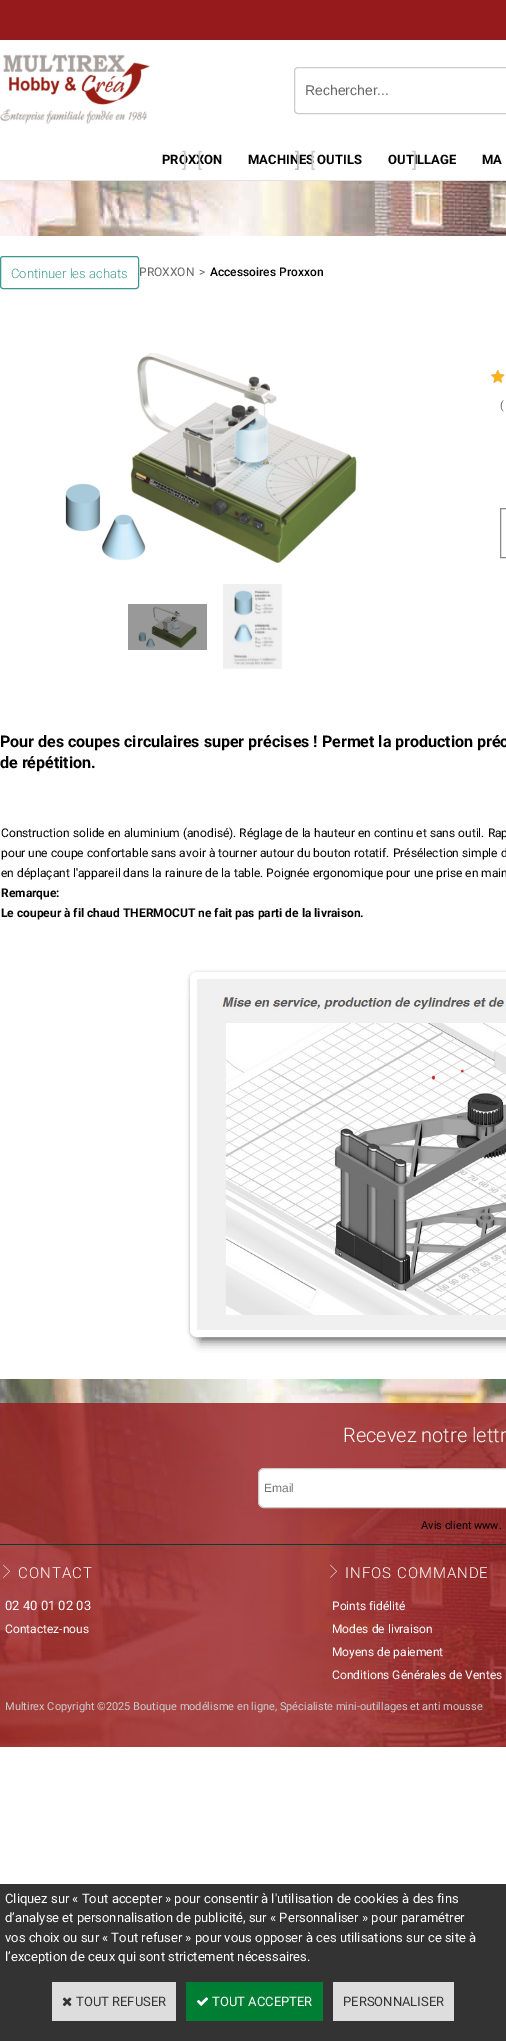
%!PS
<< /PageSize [506 2041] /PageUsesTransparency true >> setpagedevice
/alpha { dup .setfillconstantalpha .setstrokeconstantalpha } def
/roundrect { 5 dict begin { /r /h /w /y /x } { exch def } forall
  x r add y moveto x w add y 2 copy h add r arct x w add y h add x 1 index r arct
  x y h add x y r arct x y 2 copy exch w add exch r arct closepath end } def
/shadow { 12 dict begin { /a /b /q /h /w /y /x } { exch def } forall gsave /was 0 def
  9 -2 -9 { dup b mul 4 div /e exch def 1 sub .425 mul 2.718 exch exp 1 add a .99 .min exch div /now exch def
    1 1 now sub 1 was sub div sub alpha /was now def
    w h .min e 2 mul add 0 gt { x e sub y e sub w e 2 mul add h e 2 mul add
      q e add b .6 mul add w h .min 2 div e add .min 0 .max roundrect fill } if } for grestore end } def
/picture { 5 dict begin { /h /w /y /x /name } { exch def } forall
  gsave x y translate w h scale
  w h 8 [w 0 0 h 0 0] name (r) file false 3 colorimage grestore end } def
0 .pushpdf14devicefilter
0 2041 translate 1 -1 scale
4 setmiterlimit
1 setgray
0 0 506 2041 rectfill
(img1.rgb) 0 181 506 55 picture
(img2.rgb) 0 1379 506 368 picture
0.588 0.102 0.11 setrgbcolor
0 0 506 40 rectfill
0.886 setgray
0 180 506 1 rectfill
(img3.rgb) 0 54 150 70 picture
0.8 setgray
294.5 67.5 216 46 3.5 roundrect stroke
/LiberationSans-Regular [14 0 0 -14 0 0] selectfont
0.4 setgray
305 95 moveto (Rechercher...) show
/Roboto-Bold [13 0 0 -13 0 0] selectfont
0 setgray
162 164 moveto (PROXXON) show
/Roboto-Regular [20 0 0 -20 0 0] selectfont
0.8 setgray
182 167 moveto (]) show
197 167 moveto ([) show
/Roboto-Bold [13 0 0 -13 0 0] selectfont
0 setgray
248 164 moveto (MACHINES OUTILS) show
/Roboto-Regular [20 0 0 -20 0 0] selectfont
0.753 setgray
295 167 moveto (]) show
0.8 setgray
310 167 moveto ([) show
/Roboto-Bold [13 0 0 -13 0 0] selectfont
0 setgray
388 164 moveto (OUTILLAGE) show
/Roboto-Regular [20 0 0 -20 0 0] selectfont
0.8 setgray
412 167 moveto (]) show
/Roboto-Bold [13 0 0 -13 0 0] selectfont
0 setgray
482 164 moveto (MA) show
0.239 0.6 0.561 setrgbcolor
0.5 256.5 138 32 2.5 roundrect stroke
/Roboto-Light [13 0 0 -13 0 0] selectfont
11 278 moveto (Continuer les achats) show
/Roboto-Regular [12 0 0 -12 0 0] selectfont
0.4 setgray
139 276 moveto (PROXXON) show
199 276 moveto (>) show
/Roboto-Medium [12 0 0 -12 0 0] selectfont
0 setgray
210 276 moveto (Accessoires Proxxon) show
(img4.rgb) 65 353 292 210 picture
(img5.rgb) 128 604 79 46 picture
(img6.rgb) 223 584 59 85 picture
(img7.rgb) 491 370 14 13 picture
(img8.rgb) 491 370 14 13 picture
/Roboto-Regular [11 0 0 -11 0 0] selectfont
0.4 setgray
500 409 moveto (\() show
0.533 setgray
500.5 508.5 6 49 rectstroke
/Roboto-Bold [16 0 0 -16 0 0] selectfont
0 setgray
0 747 moveto (Pour des coupes circulaires super précises ! Permet la production préc) show
0 768 moveto (de répétition.) show
/Roboto-Regular [12 0 0 -12 0 0] selectfont
1 837 moveto (Construction solide en aluminium \(anodisé\). Réglage de la hauteur en continu et sans outil. Rap) show
1 857 moveto (pour une coupe confortable sans avoir à tourner autour du bouton rotatif. Présélection simple d) show
1 877 moveto (en déplaçant l'appareil dans la rainure de la table. Poignée ergonomique pour une prise en main) show
/Roboto-Bold [12 0 0 -12 0 0] selectfont
1 897 moveto (Remarque:) show
1 917 moveto (Le coupeur à fil chaud THERMOCUT ne fait pas parti de la livraison.) show
190 973 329 365 7 2 0.3 shadow
200 997 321 345 0 5 0.5 shadow
1 setgray
7 setlinewidth
193.5 975.5 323 358 3.5 roundrect stroke
(img9.rgb) 197 979 309 351 picture
0 0.255 0.216 setrgbcolor
0 1544 506 1 rectfill
/Roboto-Light [20 0 0 -20 0 0] selectfont
1 setgray
343 1442 moveto (Recevez notre lettr) show
258.5 1468.5 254 39 5.5 roundrect gsave fill grestore
0.8 setgray
1 setlinewidth
stroke
/LiberationSans-Regular [12 0 0 -12 0 0] selectfont
0.459 setgray
264 1492 moveto (Email) show
/Roboto-Regular [11 0 0 -11 0 0] selectfont
0 setgray
421 1529 moveto (Avis client www.) show
(img10.rgb) 3 1564 7 14 picture
/Roboto-Light [15 0 0 -15 0 0] selectfont
1 setgray
18 1578 moveto 1 0 (CONTACT) ashow
/Roboto-Regular [13 0 0 -13 0 0] selectfont
5 1610 moveto (02 40 01 02 03) show
/Roboto-Regular [12 0 0 -12 0 0] selectfont
5 1633 moveto (Contactez-nous) show
(img11.rgb) 330 1564 7 14 picture
/Roboto-Light [15 0 0 -15 0 0] selectfont
345 1578 moveto 1 0 (INFOS COMMANDE) ashow
/Roboto-Regular [12 0 0 -12 0 0] selectfont
332 1610 moveto (Points fidélité) show
332 1633 moveto (Modes de livraison) show
332 1656 moveto (Moyens de paiement) show
332 1679 moveto (Conditions Générales de Ventes) show
/Roboto-Regular [11 0 0 -11 0 0] selectfont
0.8 setgray
5 1710 moveto (Multirex Copyright ©2025 Boutique modélisme en ligne, Spécialiste mini-outillages et anti mousse) show
0.2 setgray
0 1884 506 157 rectfill
/Roboto-Regular [13 0 0 -13 0 0] selectfont
1 setgray
5 1903 moveto (Cliquez sur « Tout accepter » pour consentir à l'utilisation de cookies à des fins) show
5 1922 moveto (d’analyse et personnalisation de publicité, sur « Personnaliser » pour paramétrer) show
5 1942 moveto (vos choix ou sur « Tout refuser » pour vous opposer à ces utilisations sur ce site à) show
5 1961 moveto (l’exception de ceux qui sont strictement nécessaires.) show
0.867 setgray
52 1982 124 39 rectfill
(img12.rgb) 62 1997 10 10 picture
0.2 setgray
76 2006 moveto (TOUT REFUSER) show
0 0.494 0.2 setrgbcolor
186 1982 137 39 rectfill
(img13.rgb) 196 1997 13 9 picture
1 setgray
212 2006 moveto (TOUT ACCEPTER) show
0.867 setgray
333 1982 121 39 rectfill
0.2 setgray
343 2006 moveto (PERSONNALISER) show
.poppdf14devicefilter showpage
